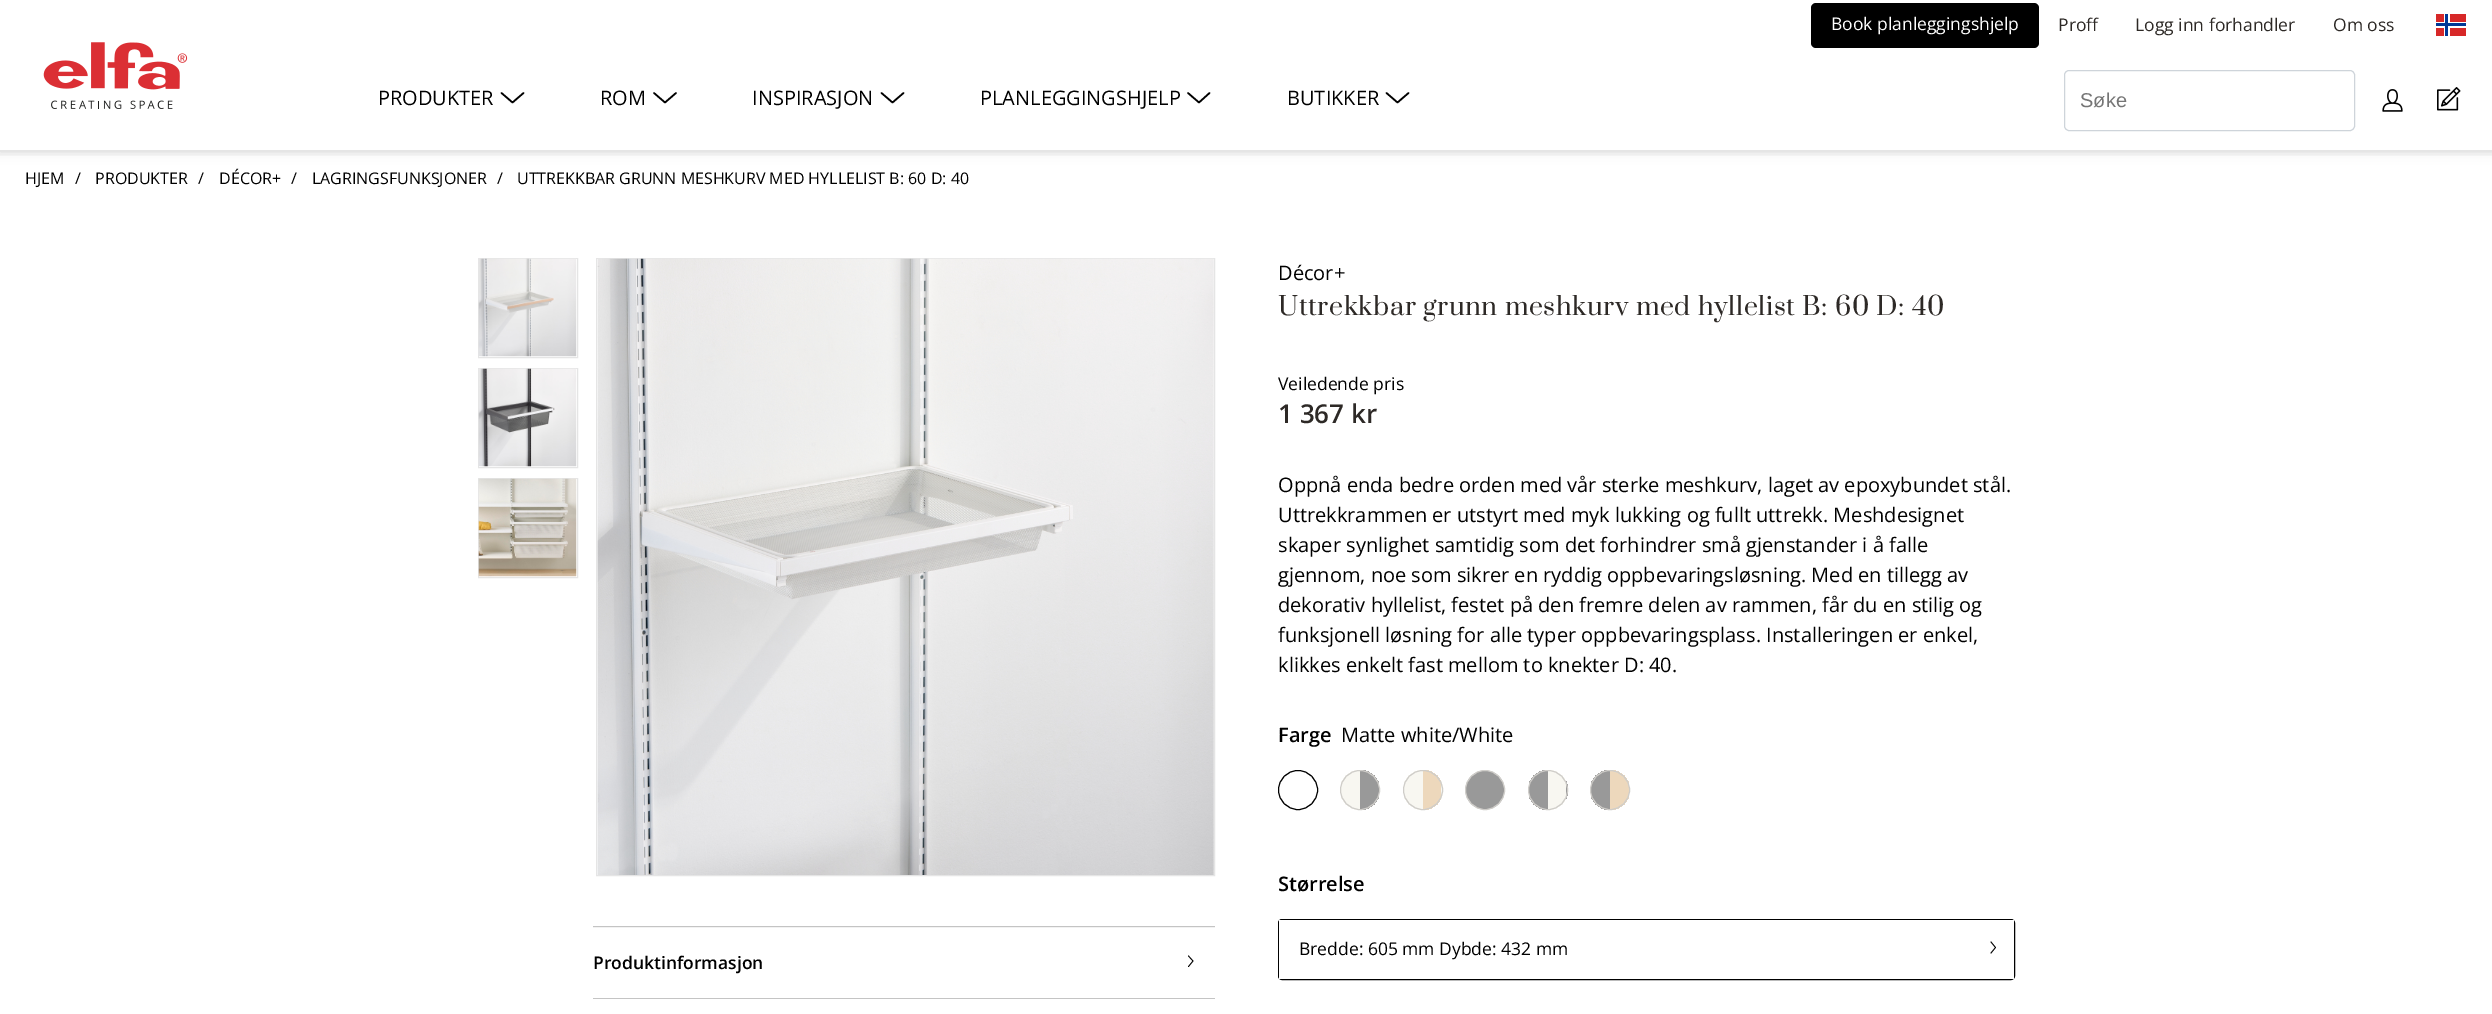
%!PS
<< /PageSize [2492 1014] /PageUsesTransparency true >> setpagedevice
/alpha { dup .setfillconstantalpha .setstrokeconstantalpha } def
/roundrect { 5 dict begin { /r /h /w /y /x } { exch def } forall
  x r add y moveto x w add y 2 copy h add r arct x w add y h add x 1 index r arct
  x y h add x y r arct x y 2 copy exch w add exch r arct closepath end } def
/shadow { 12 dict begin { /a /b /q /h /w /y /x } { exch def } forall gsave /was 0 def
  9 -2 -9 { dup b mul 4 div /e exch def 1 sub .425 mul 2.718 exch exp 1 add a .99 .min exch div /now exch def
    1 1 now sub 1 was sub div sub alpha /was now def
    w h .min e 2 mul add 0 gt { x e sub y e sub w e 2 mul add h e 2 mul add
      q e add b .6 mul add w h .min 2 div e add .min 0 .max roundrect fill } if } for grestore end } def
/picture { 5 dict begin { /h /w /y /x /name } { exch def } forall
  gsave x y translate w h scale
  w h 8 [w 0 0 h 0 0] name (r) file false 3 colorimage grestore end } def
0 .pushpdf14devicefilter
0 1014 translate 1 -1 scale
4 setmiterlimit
1 setgray
0 0 2492 1014 rectfill
0 setgray
-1 -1 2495 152 0 6 0.1 shadow
1 setgray
0 0 2492 150 rectfill
gsave
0 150 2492 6 rectclip
0 setgray
-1 -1 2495 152 0 6 0.1 shadow
grestore
0 setgray
1811 3 228 45 5 roundrect fill
/OpenSans-Regular [17.5 0 0 -17.5 0 0] selectfont
1 setgray
1831 30 moveto (Book planleggingshjelp) show
0.176 0.161 0.149 setrgbcolor
2058 31 moveto (Proff) show
2135 31 moveto (Logg inn forhandler) show
2333 31 moveto (Om oss) show
(img1.rgb) 2436 14 30 22 picture
(img2.rgb) 43 42 145 67 picture
/OpenSans-Regular [20 0 0 -20 0 0] selectfont
0 setgray
378 105 moveto (PRODUKTER) show
1.6 setlinewidth
1 setlinecap
1 setlinejoin
newpath 523.5 93 moveto 512.5 102.5 lineto 501.5 93 lineto stroke
600 105 moveto (ROM) show
newpath 676 93 moveto 665 102.5 lineto 654 93 lineto stroke
752 105 moveto (INSPIRASJON) show
newpath 903.5 93 moveto 892.5 102.5 lineto 881.5 93 lineto stroke
980 105 moveto (PLANLEGGINGSHJELP) show
newpath 1209.5 93 moveto 1199 102.5 lineto 1188 93 lineto stroke
1287 105 moveto (BUTIKKER) show
newpath 1408.5 93 moveto 1397.5 102.5 lineto 1386.5 93 lineto stroke
0.808 0.831 0.855 setrgbcolor
1 setlinewidth
0 setlinecap
0 setlinejoin
2064.5 70.5 290 60 4.5 roundrect stroke
/LiberationSans-Regular [20 0 0 -20 0 0] selectfont
0.459 setgray
2080 107 moveto (Søke) show
(img3.rgb) 2382 89 21 23 picture
(img4.rgb) 2437 87 24 24 picture
/OpenSans-Regular [16 0 0 -16 0 0] selectfont
0 setgray
25 184 moveto (HJEM) show
75 184 moveto (/) show
95 184 moveto (PRODUKTER) show
198 184 moveto (/) show
219 184 moveto (DÉCOR+) show
291 184 moveto (/) show
312 184 moveto (LAGRINGSFUNKSJONER) show
497 184 moveto (/) show
517 184 moveto (UTTREKKBAR GRUNN MESHKURV MED HYLLELIST B: 60 D: 40) show
/OpenSans-Regular [20 0 0 -20 0 0] selectfont
1278 280 moveto (Décor+) show
/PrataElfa-Regular [25 0 0 -25 0 0] selectfont
0.176 0.161 0.149 setrgbcolor
1278 315 moveto 0.62 0 (Uttrekkbar grunn meshkurv med hyllelist B: 60 D: 40) ashow
/OpenSans-Regular [17.5 0 0 -17.5 0 0] selectfont
0 setgray
1278 390 moveto (Veiledende pris) show
/OpenSans-SemiBold [26 0 0 -26 0 0] selectfont
0.176 0.161 0.149 setrgbcolor
1278 423 moveto (1 367 kr) show
/OpenSans-Regular [20 0 0 -20 0 0] selectfont
0 setgray
1278 492 moveto (Oppnå enda bedre orden med vår sterke meshkurv, laget av epoxybundet stål.) show
1278 522 moveto (Uttrekkrammen er utstyrt med myk lukking og fullt uttrekk. Meshdesignet) show
1278 552 moveto (skaper synlighet samtidig som det forhindrer små gjenstander i å falle) show
1278 582 moveto (gjennom, noe som sikrer en ryddig oppbevaringsløsning. Med en tillegg av) show
1278 612 moveto (dekorativ hyllelist, festet på den fremre delen av rammen, får du en stilig og) show
1278 642 moveto (funksjonell løsning for alle typer oppbevaringsplass. Installeringen er enkel,) show
1278 672 moveto (klikkes enkelt fast mellom to knekter D: 40.) show
/OpenSans-SemiBold [20 0 0 -20 0 0] selectfont
1278 742 moveto (Farge) show
/OpenSans-Regular [20 0 0 -20 0 0] selectfont
1341 742 moveto (Matte white/White) show
newpath 1298 790 19.5 0 360 arc closepath stroke
gsave
1340 770 40 40 20 roundrect clip newpath
0.973 0.969 0.945 setrgbcolor
1341 770 19 40 rectfill
0.6 setgray
1360 770 19 40 rectfill
grestore
0.812 0.804 0.788 setrgbcolor
newpath 1360 790 19.5 0 360 arc closepath stroke
gsave
1403 770 40 40 20 roundrect clip newpath
0.973 0.969 0.945 setrgbcolor
1404 770 19 40 rectfill
0.929 0.847 0.737 setrgbcolor
1423 770 18 40 rectfill
0.973 0.969 0.945 setrgbcolor
1441 781 2 18 rectfill
grestore
newpath 1423 790 19.5 0 360 arc closepath stroke
0.6 setgray
newpath 1485 790 19.5 0 360 arc closepath gsave fill grestore
0.812 0.804 0.788 setrgbcolor
stroke
gsave
1528 770 40 40 20 roundrect clip newpath
0.6 setgray
1529 770 19 40 rectfill
0.973 0.969 0.945 setrgbcolor
1548 770 18 40 rectfill
0.6 setgray
1566 781 2 18 rectfill
grestore
newpath 1548 790 19.5 0 360 arc closepath stroke
gsave
1590 770 40 40 20 roundrect clip newpath
0.6 setgray
1591 770 19 40 rectfill
0.929 0.847 0.737 setrgbcolor
1610 770 19 40 rectfill
grestore
newpath 1610 790 19.5 0 360 arc closepath stroke
/OpenSans-SemiBold [20 0 0 -20 0 0] selectfont
0 setgray
1278 891 moveto (Størrelse) show
1278.5 919.5 736 60 3.5 roundrect stroke
1 setgray
1279 920 735 59 rectfill
/OpenSans-Regular [17.5 0 0 -17.5 0 0] selectfont
0 setgray
1299 955 moveto (Bredde: 605 mm Dybde: 432 mm) show
0.8 setlinewidth
1 setlinecap
1 setlinejoin
newpath 1991 953 moveto 1995.5 947.5 lineto 1991 942 lineto stroke
0.898 setgray
1 setlinewidth
0 setlinecap
0 setlinejoin
478.5 258.5 99 99 rectstroke
(img5.rgb) 478 258 99 99 picture
478.5 368.5 99 99 rectstroke
(img6.rgb) 478 368 99 99 picture
478.5 478.5 99 99 rectstroke
(img7.rgb) 478 478 99 99 picture
596.5 258.5 618 617 rectstroke
(img8.rgb) 597 258 617 617 picture
0.949 setgray
593 927 622 1 rectfill
0.769 setgray
593 926 622 1 rectfill
/OpenSans-SemiBold [17.5 0 0 -17.5 0 0] selectfont
0 setgray
593 969 moveto (Produktinformasjon) show
0.8 setlinewidth
1 setlinecap
1 setlinejoin
newpath 1188.5 966.5 moveto 1193 961 lineto 1188.5 956 lineto stroke
0.769 setgray
593 998 622 1 rectfill
.poppdf14devicefilter showpage
